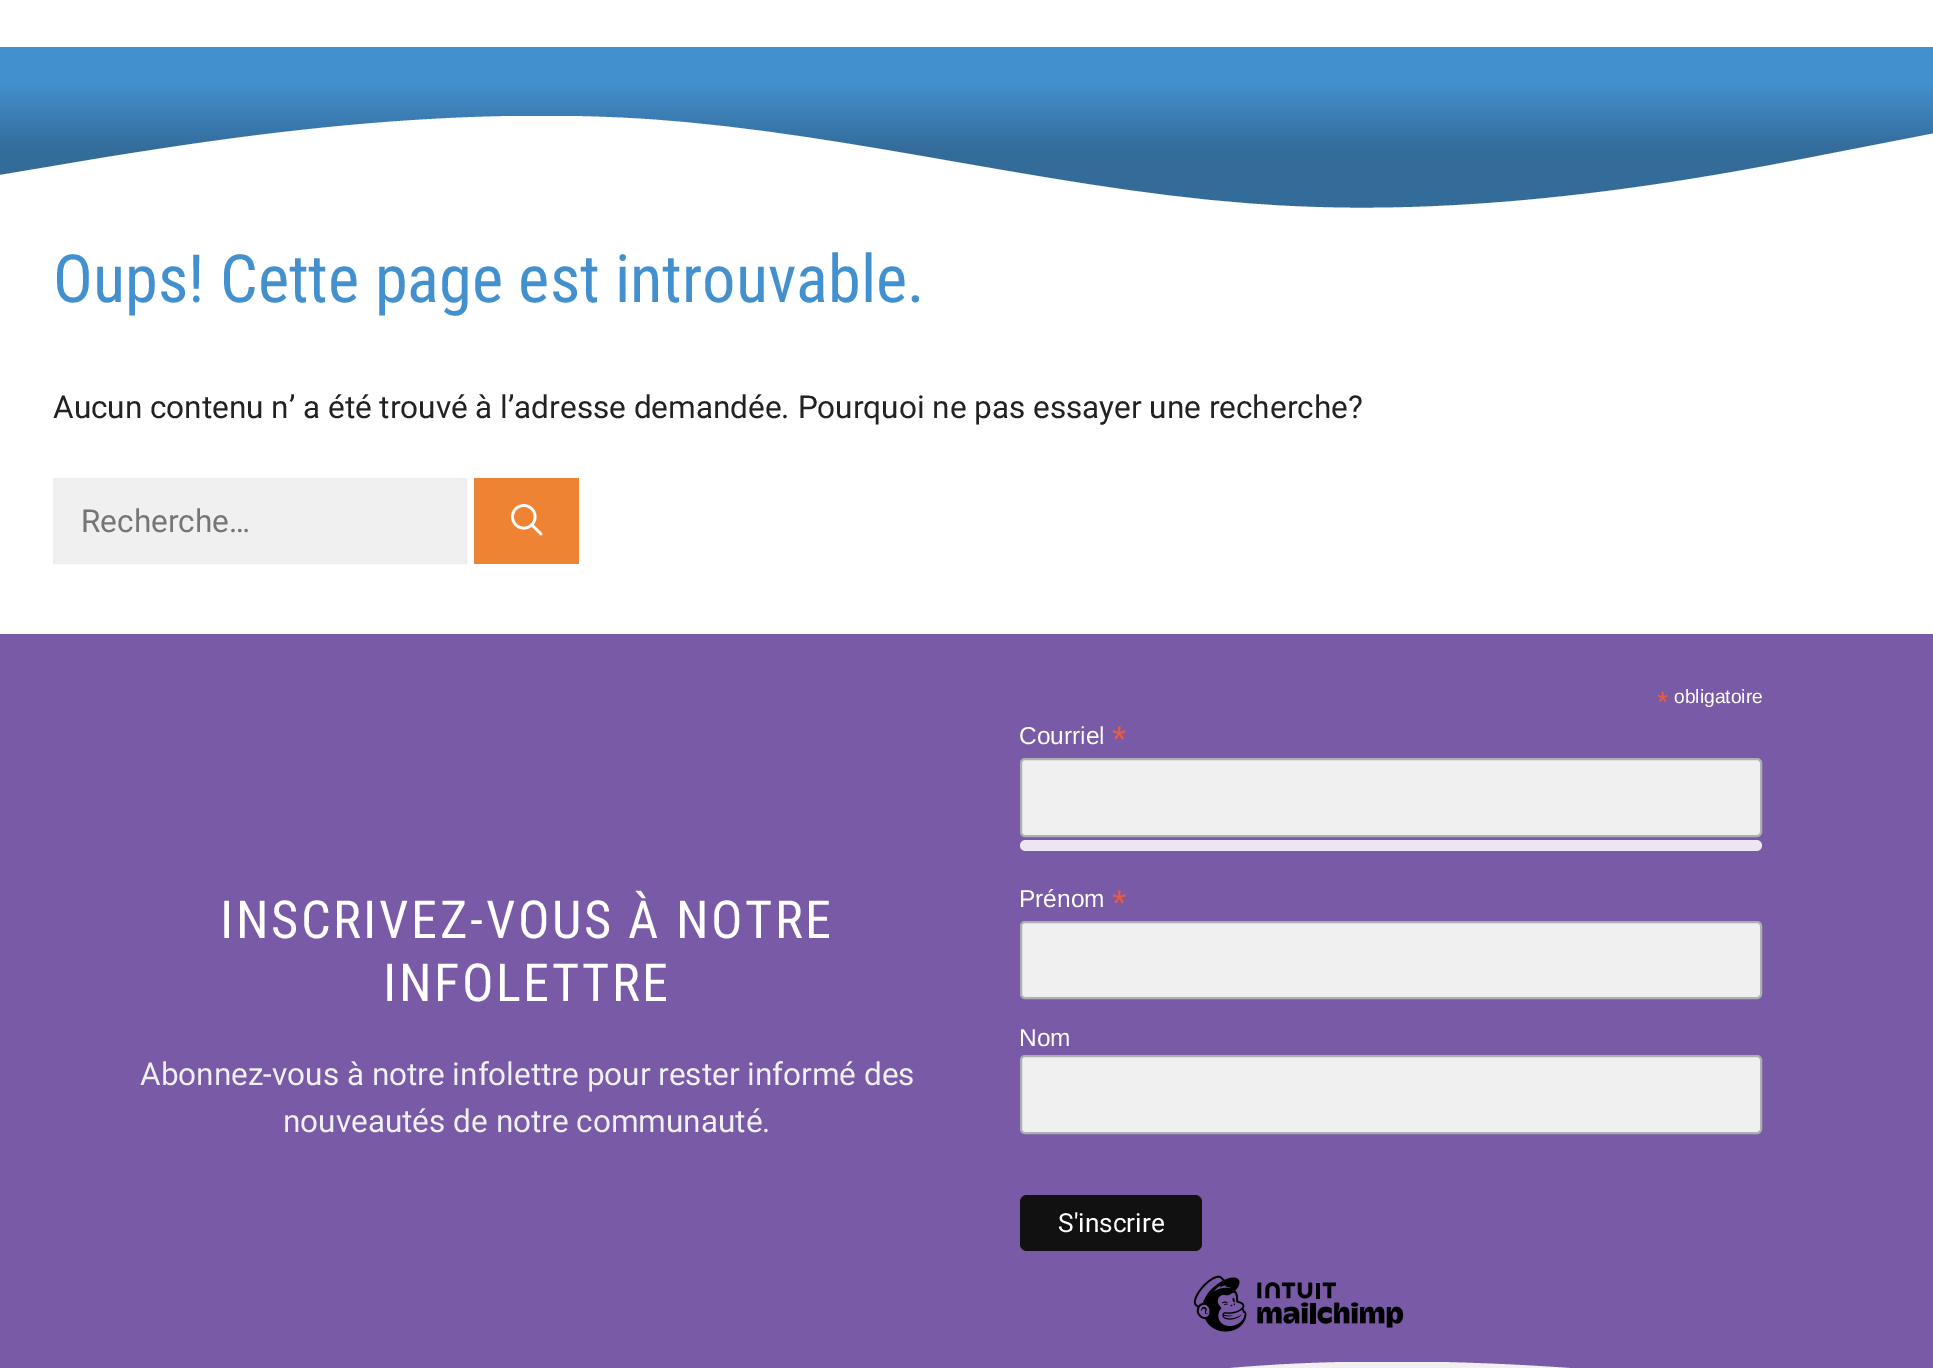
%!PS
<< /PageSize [1933 1368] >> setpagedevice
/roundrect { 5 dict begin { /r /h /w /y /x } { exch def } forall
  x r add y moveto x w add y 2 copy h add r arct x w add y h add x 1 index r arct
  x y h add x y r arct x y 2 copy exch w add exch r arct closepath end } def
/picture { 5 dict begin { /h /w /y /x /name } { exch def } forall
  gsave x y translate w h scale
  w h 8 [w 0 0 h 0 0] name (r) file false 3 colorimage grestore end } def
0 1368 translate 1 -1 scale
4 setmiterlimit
1 setgray
0 0 1933 1368 rectfill
gsave newpath 0 47 moveto 1933 47 lineto 1933 208 lineto 0 208 lineto closepath clip newpath
<< /ShadingType 2 /ColorSpace /DeviceRGB /Coords [967 47 967 222] /Extend [true true] /Function << /FunctionType 3 /Domain [0 1] /Functions [<< /FunctionType 2 /Domain [0 1] /C0 [0.263 0.565 0.808] /C1 [0.263 0.565 0.808] /N 1 >> << /FunctionType 2 /Domain [0 1] /C0 [0.263 0.565 0.808] /C1 [0.2 0.42 0.6] /N 1 >> << /FunctionType 2 /Domain [0 1] /C0 [0.2 0.42 0.6] /C1 [0.2 0.42 0.6] /N 1 >>] /Bounds [0.2 0.6] /Encode [0 1 0 1 0 1] >> >> shfill grestore
gsave
0 116 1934 108 rectclip
newpath 0 224 moveto 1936 224 lineto 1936 133 lineto 1828 154 lineto 1721 175 1505 217 1290 206 curveto 1075 196 860 133 645 119 curveto 430 105 215 140 107 157 curveto 0 175 lineto closepath fill
grestore
/RobotoCondensed-Regular [66.5 0 0 -66.5 0 0] selectfont
0.263 0.565 0.808 setrgbcolor
53 302 moveto (Oups! Cette page est introuvable.) show
/Roboto-Regular [31.5 0 0 -31.5 0 0] selectfont
0.133 setgray
53 418 moveto (Aucun contenu n’ a été trouvé à l’adresse demandée. Pourquoi ne pas essayer une recherche?) show
0.941 0.941 0.945 setrgbcolor
newpath 54 479 moveto 466 479 lineto 466 563 lineto 54 563 lineto closepath gsave fill grestore
0.937 0.937 0.929 setrgbcolor
2 setlinewidth
stroke
0.459 setgray
81 532 moveto (Recherche…) show
0.933 0.514 0.2 setrgbcolor
474 478 105 86 rectfill
(img1.rgb) 511 504 32 32 picture
0.475 0.353 0.651 setrgbcolor
0 634 1933 734 rectfill
/RobotoCondensed-Regular [52.5 0 0 -52.5 0 0] selectfont
1 setgray
220 938 moveto 2.6 0 (INSCRIVEZ-VOUS À NOTRE) ashow
383 1001 moveto 2.6 0 (INFOLETTRE) ashow
/Roboto-Regular [31.5 0 0 -31.5 0 0] selectfont
0.941 0.941 0.945 setrgbcolor
140 1085 moveto (Abonnez-vous à notre infolettre pour rester informé des) show
283 1132 moveto (nouveautés de notre communauté.) show
/LiberationSans-Regular [29 0 0 -29 0 0] selectfont
0.91 0.361 0.255 setrgbcolor
1657 712 moveto (*) show
/LiberationSans-Regular [19.25 0 0 -19.25 0 0] selectfont
1 setgray
1674 703 moveto (obligatoire) show
/LiberationSans-Regular [24.5 0 0 -24.5 0 0] selectfont
1019 744 moveto (Courriel) show
/LiberationSans-Regular [37 0 0 -37 0 0] selectfont
0.91 0.361 0.255 setrgbcolor
1112 752 moveto (*) show
0.941 0.941 0.945 setrgbcolor
1021 759 740 77 4 roundrect gsave fill grestore
0.671 0.69 0.698 setrgbcolor
stroke
0.922 0.902 0.949 setrgbcolor
1020 840 742 11 5.5 roundrect fill
/LiberationSans-Regular [24.5 0 0 -24.5 0 0] selectfont
1 setgray
1019 907 moveto (Prénom) show
/LiberationSans-Regular [37 0 0 -37 0 0] selectfont
0.91 0.361 0.255 setrgbcolor
1112 916 moveto (*) show
0.941 0.941 0.945 setrgbcolor
1021 922 740 76 4 roundrect gsave fill grestore
0.671 0.69 0.698 setrgbcolor
stroke
/LiberationSans-Regular [24.5 0 0 -24.5 0 0] selectfont
1 setgray
1019 1046 moveto (Nom) show
0.941 0.941 0.945 setrgbcolor
1021 1056 740 77 4 roundrect gsave fill grestore
0.671 0.69 0.698 setrgbcolor
stroke
0.067 setgray
1020 1195 182 56 7 roundrect fill
/Roboto-Regular [26.25 0 0 -26.25 0 0] selectfont
1 setgray
1058 1232 moveto (S'inscrire) show
(img2.rgb) 1193 1275 211 57 picture
gsave
0 1362 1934 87 rectclip
0.941 0.941 0.945 setrgbcolor
newpath 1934 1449 moveto -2 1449 lineto -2 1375 lineto 106 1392 lineto 213 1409 428 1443 643 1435 curveto 858 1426 1074 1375 1289 1364 curveto 1504 1353 1719 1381 1826 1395 curveto 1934 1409 lineto closepath fill
grestore
showpage
